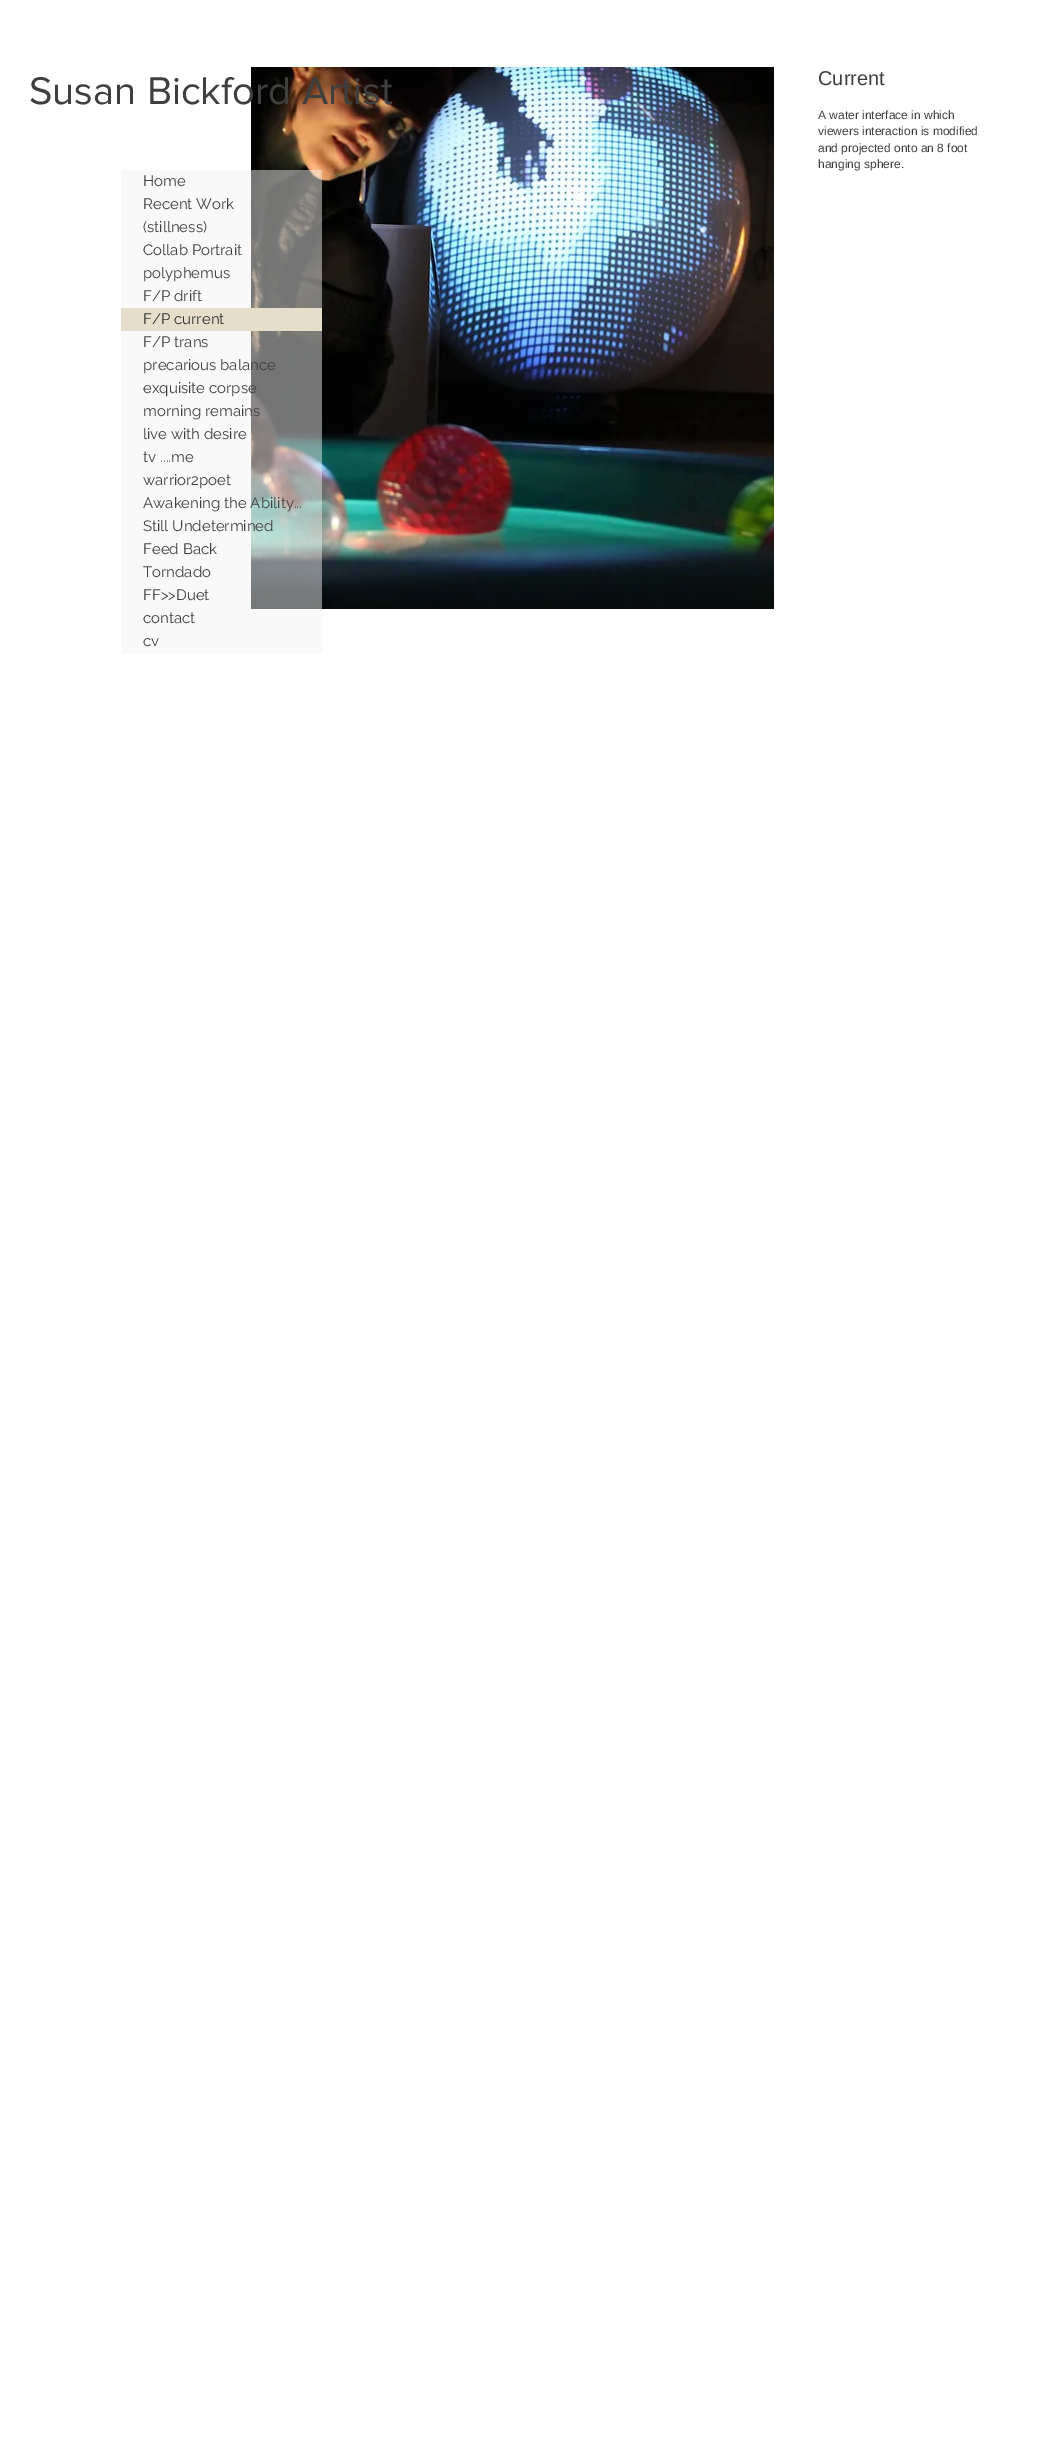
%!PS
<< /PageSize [1037 2453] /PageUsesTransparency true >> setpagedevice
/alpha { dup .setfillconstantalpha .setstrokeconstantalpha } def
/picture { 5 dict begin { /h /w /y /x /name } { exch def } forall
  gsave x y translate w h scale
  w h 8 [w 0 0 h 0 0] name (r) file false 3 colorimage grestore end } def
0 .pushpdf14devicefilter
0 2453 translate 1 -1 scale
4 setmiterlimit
1 setgray
0 0 1037 2453 rectfill
(img1.rgb) 251 67 523 542 picture
/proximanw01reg-Regular [40 0 0 -40 0 0] selectfont
0.247 setgray
29 104 moveto (Susan Bickford Artist) show
0.48 alpha
0.949 setgray
121 170 201 23 rectfill
/Raleway-Regular [15 0 0 -15 0 0] selectfont
1 alpha
0.247 setgray
143 186 moveto (Home) show
0.48 alpha
0.949 setgray
121 193 201 23 rectfill
1 alpha
0.247 setgray
143 209 moveto (Recent Work) show
0.48 alpha
0.949 setgray
121 216 201 23 rectfill
1 alpha
0.247 setgray
143 232 moveto (\(stillness\)) show
0.48 alpha
0.949 setgray
121 239 201 23 rectfill
1 alpha
0.247 setgray
143 255 moveto (Collab Portrait) show
0.48 alpha
0.949 setgray
121 262 201 23 rectfill
1 alpha
0.247 setgray
143 278 moveto (polyphemus) show
0.48 alpha
0.949 setgray
121 285 201 23 rectfill
1 alpha
0.247 setgray
143 301 moveto (F/P drift) show
0.902 0.871 0.792 setrgbcolor
121 308 201 23 rectfill
0.196 setgray
143 324 moveto (F/P current) show
0.48 alpha
0.949 setgray
121 331 201 23 rectfill
1 alpha
0.247 setgray
143 347 moveto (F/P trans) show
0.48 alpha
0.949 setgray
121 354 201 23 rectfill
1 alpha
0.247 setgray
143 370 moveto (precarious balance) show
0.48 alpha
0.949 setgray
121 377 201 23 rectfill
1 alpha
0.247 setgray
143 393 moveto (exquisite corpse) show
0.48 alpha
0.949 setgray
121 400 201 23 rectfill
1 alpha
0.247 setgray
143 416 moveto (morning remains) show
0.48 alpha
0.949 setgray
121 423 201 23 rectfill
1 alpha
0.247 setgray
143 439 moveto (live with desire) show
0.48 alpha
0.949 setgray
121 446 201 23 rectfill
1 alpha
0.247 setgray
143 462 moveto (tv ....me) show
0.48 alpha
0.949 setgray
121 469 201 23 rectfill
1 alpha
0.247 setgray
143 485 moveto (warrior2poet) show
0.48 alpha
0.949 setgray
121 492 201 23 rectfill
1 alpha
0.247 setgray
143 508 moveto (Awakening the Ability...) show
0.48 alpha
0.949 setgray
121 515 201 23 rectfill
1 alpha
0.247 setgray
143 531 moveto (Still Undetermined) show
0.48 alpha
0.949 setgray
121 538 201 23 rectfill
1 alpha
0.247 setgray
143 554 moveto (Feed Back) show
0.48 alpha
0.949 setgray
121 561 201 23 rectfill
1 alpha
0.247 setgray
143 577 moveto (Torndado) show
0.48 alpha
0.949 setgray
121 584 201 23 rectfill
1 alpha
0.247 setgray
143 600 moveto (FF>>Duet) show
0.48 alpha
0.949 setgray
121 607 201 23 rectfill
1 alpha
0.247 setgray
143 623 moveto (contact) show
0.976 setgray
121 630 201 23 rectfill
0.247 setgray
143 646 moveto (cv) show
/LiberationSans-Regular [20 0 0 -20 0 0] selectfont
818 85 moveto (Current) show
/LiberationSans-Regular [12 0 0 -12 0 0] selectfont
818 119 moveto (A water interface in which) show
818 135 moveto (viewers interaction is modified) show
818 152 moveto (and projected onto an 8 foot) show
818 168 moveto (hanging sphere.) show
.poppdf14devicefilter showpage
